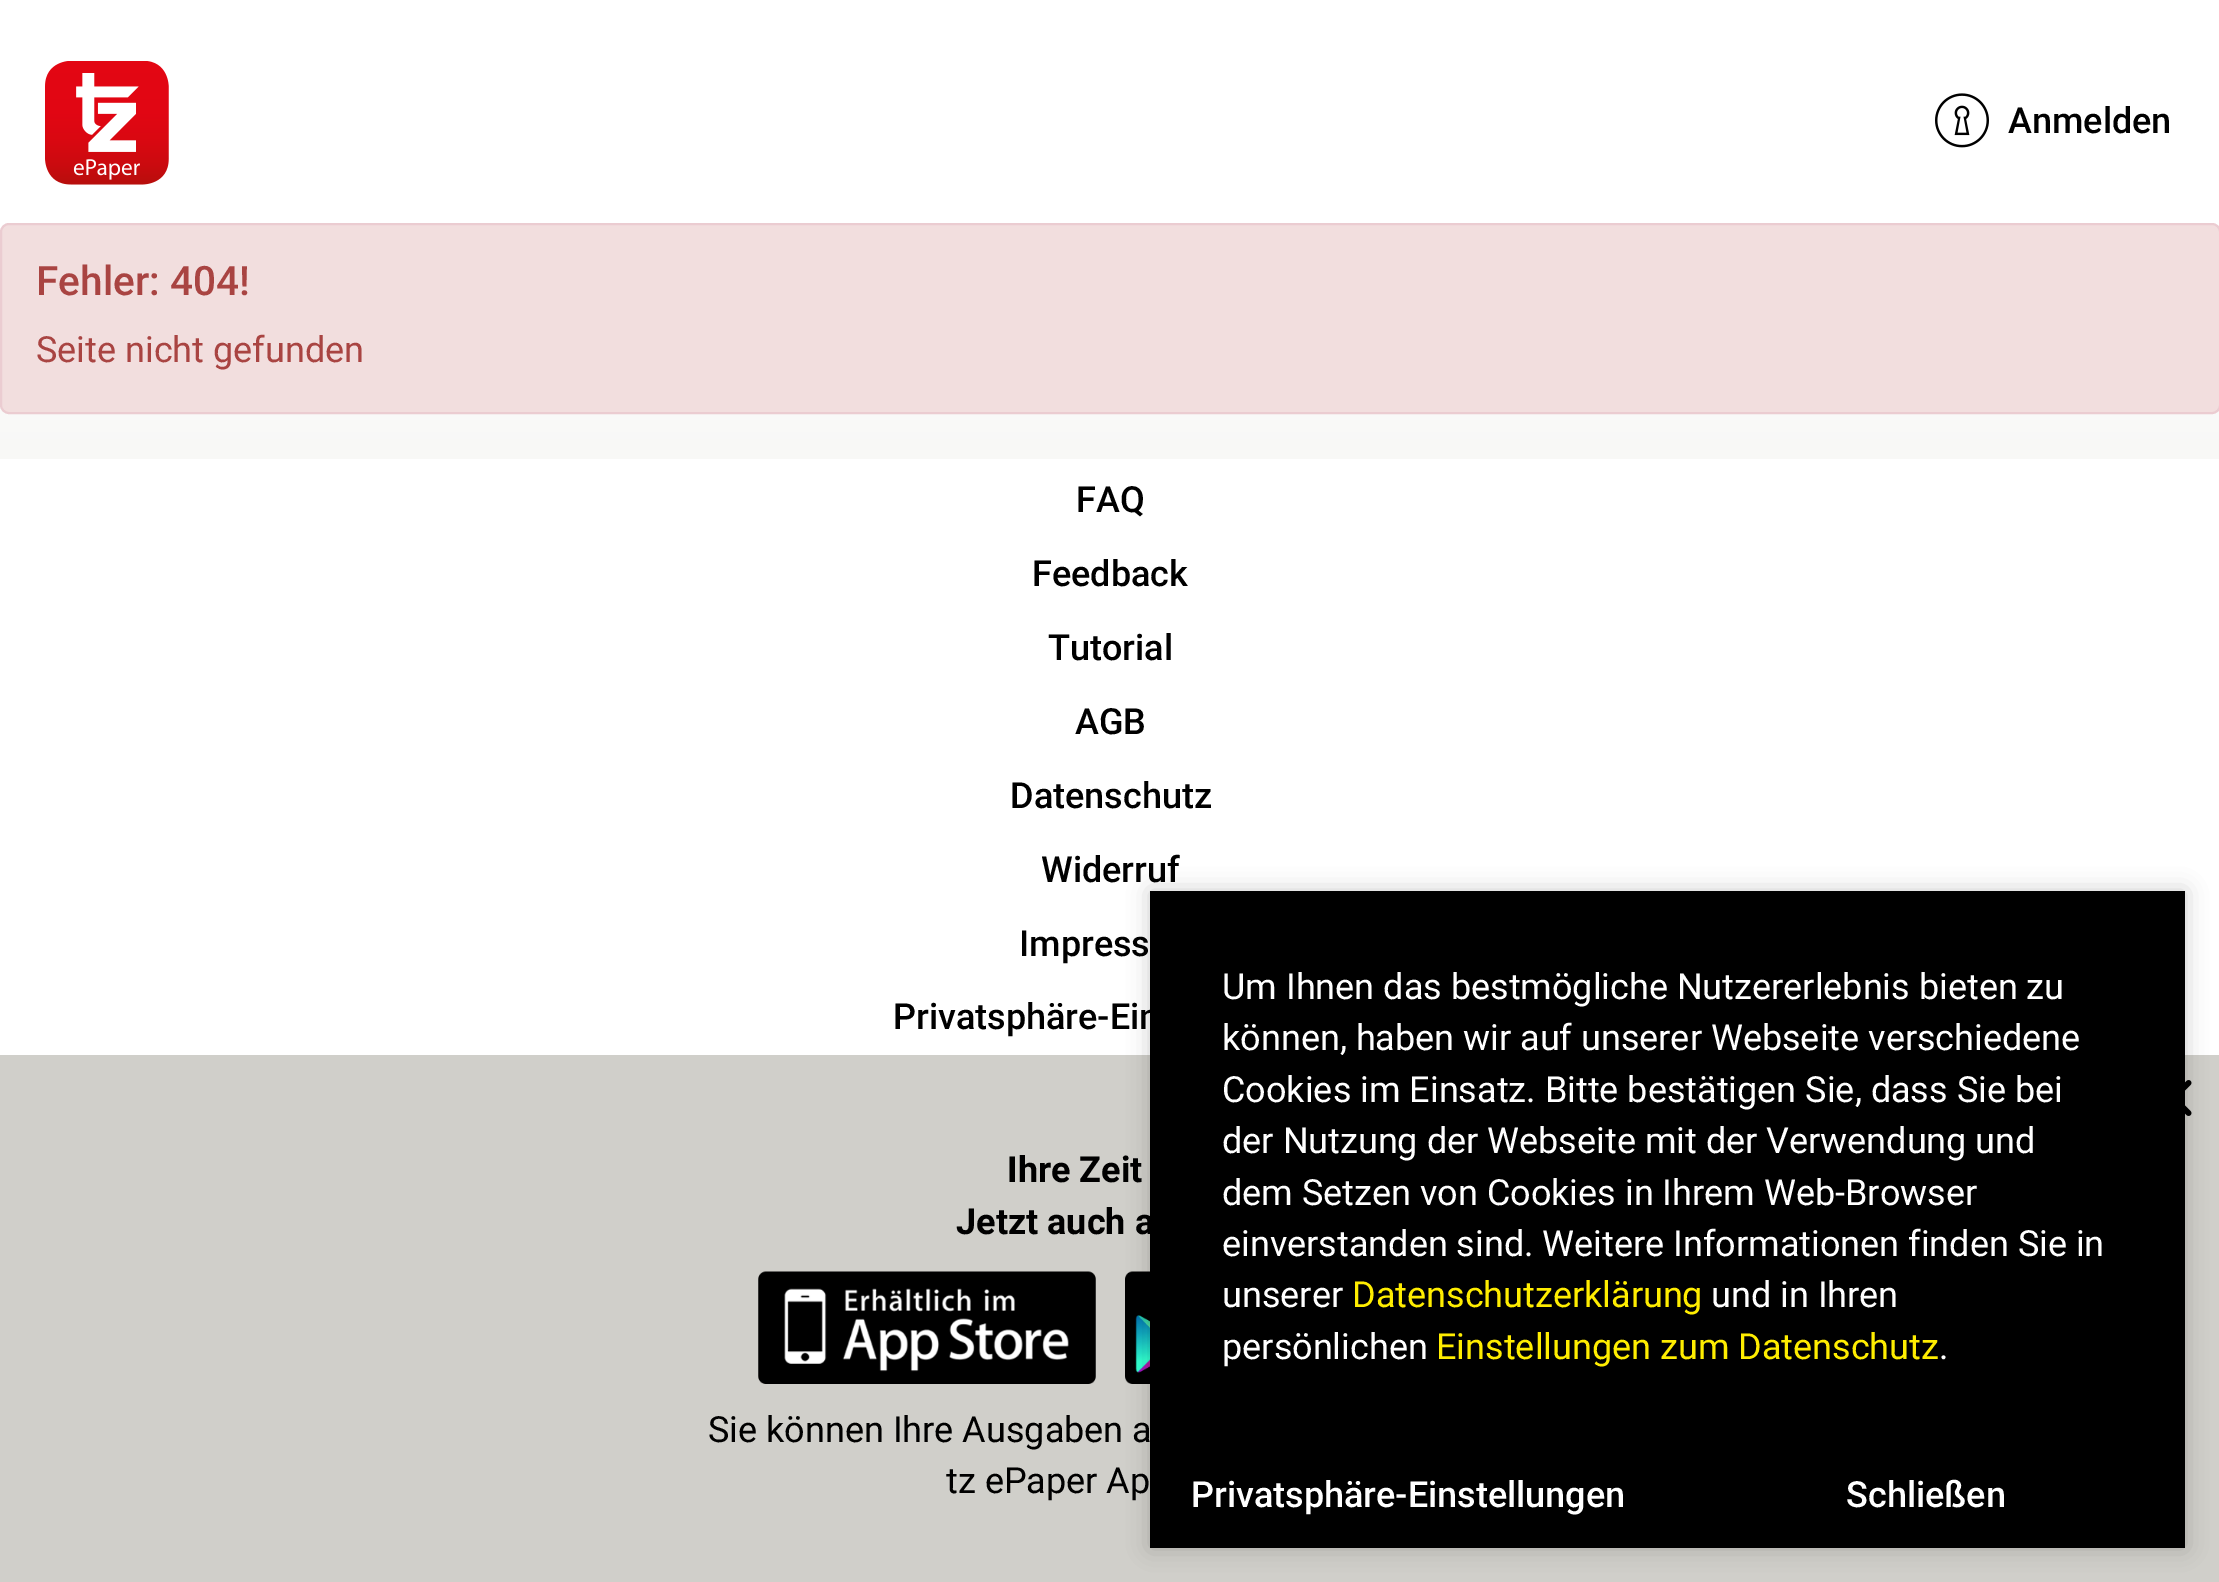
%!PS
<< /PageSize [2219 1582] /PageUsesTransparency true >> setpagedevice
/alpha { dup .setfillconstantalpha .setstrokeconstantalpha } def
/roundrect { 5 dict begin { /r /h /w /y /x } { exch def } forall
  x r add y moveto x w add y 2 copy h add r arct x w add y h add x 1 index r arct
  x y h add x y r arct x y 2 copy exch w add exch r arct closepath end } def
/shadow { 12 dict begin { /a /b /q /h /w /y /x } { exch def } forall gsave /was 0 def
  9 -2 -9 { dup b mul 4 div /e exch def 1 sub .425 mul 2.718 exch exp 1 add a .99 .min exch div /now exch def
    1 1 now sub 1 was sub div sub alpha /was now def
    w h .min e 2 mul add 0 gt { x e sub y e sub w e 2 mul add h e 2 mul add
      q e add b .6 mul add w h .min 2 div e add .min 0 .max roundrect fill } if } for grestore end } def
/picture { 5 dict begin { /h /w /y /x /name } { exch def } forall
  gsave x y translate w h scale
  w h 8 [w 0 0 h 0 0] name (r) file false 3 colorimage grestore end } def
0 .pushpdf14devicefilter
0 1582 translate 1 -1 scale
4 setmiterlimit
1 setgray
0 0 2219 1582 rectfill
(img1.rgb) 45 61 124 124 picture
(img2.rgb) 1935 93 54 55 picture
/Roboto-Medium [36 0 0 -36 0 0] selectfont
0 setgray
2008 133 moveto (Anmelden) show
gsave newpath 0 322 moveto 2219 322 lineto 2219 459 lineto 0 459 lineto closepath clip newpath
<< /ShadingType 2 /ColorSpace /DeviceRGB /Coords [1110 -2.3 1110 898] /Extend [true true] /Function << /FunctionType 3 /Domain [0 1] /Functions [<< /FunctionType 2 /Domain [0 1] /C0 [1 1 1] /C1 [1 1 1] /N 1 >> << /FunctionType 2 /Domain [0 1] /C0 [1 1 1] /C1 [0.906 0.906 0.886] /N 1 >>] /Bounds [0.3] /Encode [0 1 0 1] >> >> shfill grestore
0.949 0.871 0.871 setrgbcolor
1 224 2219 189 8 roundrect gsave fill grestore
0.922 0.8 0.82 setrgbcolor
2 setlinewidth
stroke
/Roboto-Medium [40.5 0 0 -40.5 0 0] selectfont
0.663 0.267 0.259 setrgbcolor
36 295 moveto (Fehler: 404!) show
/Roboto-Regular [36 0 0 -36 0 0] selectfont
36 362 moveto (Seite nicht gefunden) show
/Roboto-Medium [36 0 0 -36 0 0] selectfont
0 setgray
1076 512 moveto (FAQ) show
1032 586 moveto (Feedback) show
1048 660 moveto (Tutorial) show
1075 734 moveto (AGB) show
1010 808 moveto (Datenschutz) show
1041 882 moveto (Widerruf) show
1019 956 moveto (Impress) show
893 1029 moveto (Privatsphäre-Ein) show
0.816 0.812 0.792 setrgbcolor
0 1055 2219 527 rectfill
(img3.rgb) 2185 1080 7 36 picture
/Roboto-Bold [36 0 0 -36 0 0] selectfont
0 setgray
1007 1182 moveto (Ihre Zeit) show
956 1234 moveto (Jetzt auch a) show
(img4.rgb) 758 1271 338 113 picture
(img5.rgb) 1125 1271 25 113 picture
/Roboto-Regular [36 0 0 -36 0 0] selectfont
708 1442 moveto (Sie können Ihre Ausgaben a) show
946 1493 moveto (tz ePaper Ap) show
1150 891 1035 657 0 11 0.2 shadow
1150 891 1035 657 rectfill
1 setgray
1222 999 moveto (Um Ihnen das bestmögliche Nutzererlebnis bieten zu) show
1222 1050 moveto (können, haben wir auf unserer Webseite verschiedene) show
1222 1102 moveto (Cookies im Einsatz. Bitte bestätigen Sie, dass Sie bei) show
1222 1153 moveto (der Nutzung der Webseite mit der Verwendung und) show
1222 1205 moveto (dem Setzen von Cookies in Ihrem Web-Browser) show
1222 1256 moveto (einverstanden sind. Weitere Informationen finden Sie in) show
1222 1307 moveto (unserer) show
1 0.929 0 setrgbcolor
1352 1307 moveto (Datenschutzerklärung) show
1 setgray
1711 1307 moveto (und in Ihren) show
1222 1359 moveto (persönlichen) show
1 0.929 0 setrgbcolor
1436 1359 moveto (Einstellungen zum Datenschutz) show
1 setgray
1939 1359 moveto (.) show
/Roboto-Medium [36 0 0 -36 0 0] selectfont
1191 1507 moveto (Privatsphäre-Einstellungen) show
1846 1507 moveto (Schließen) show
.poppdf14devicefilter showpage
